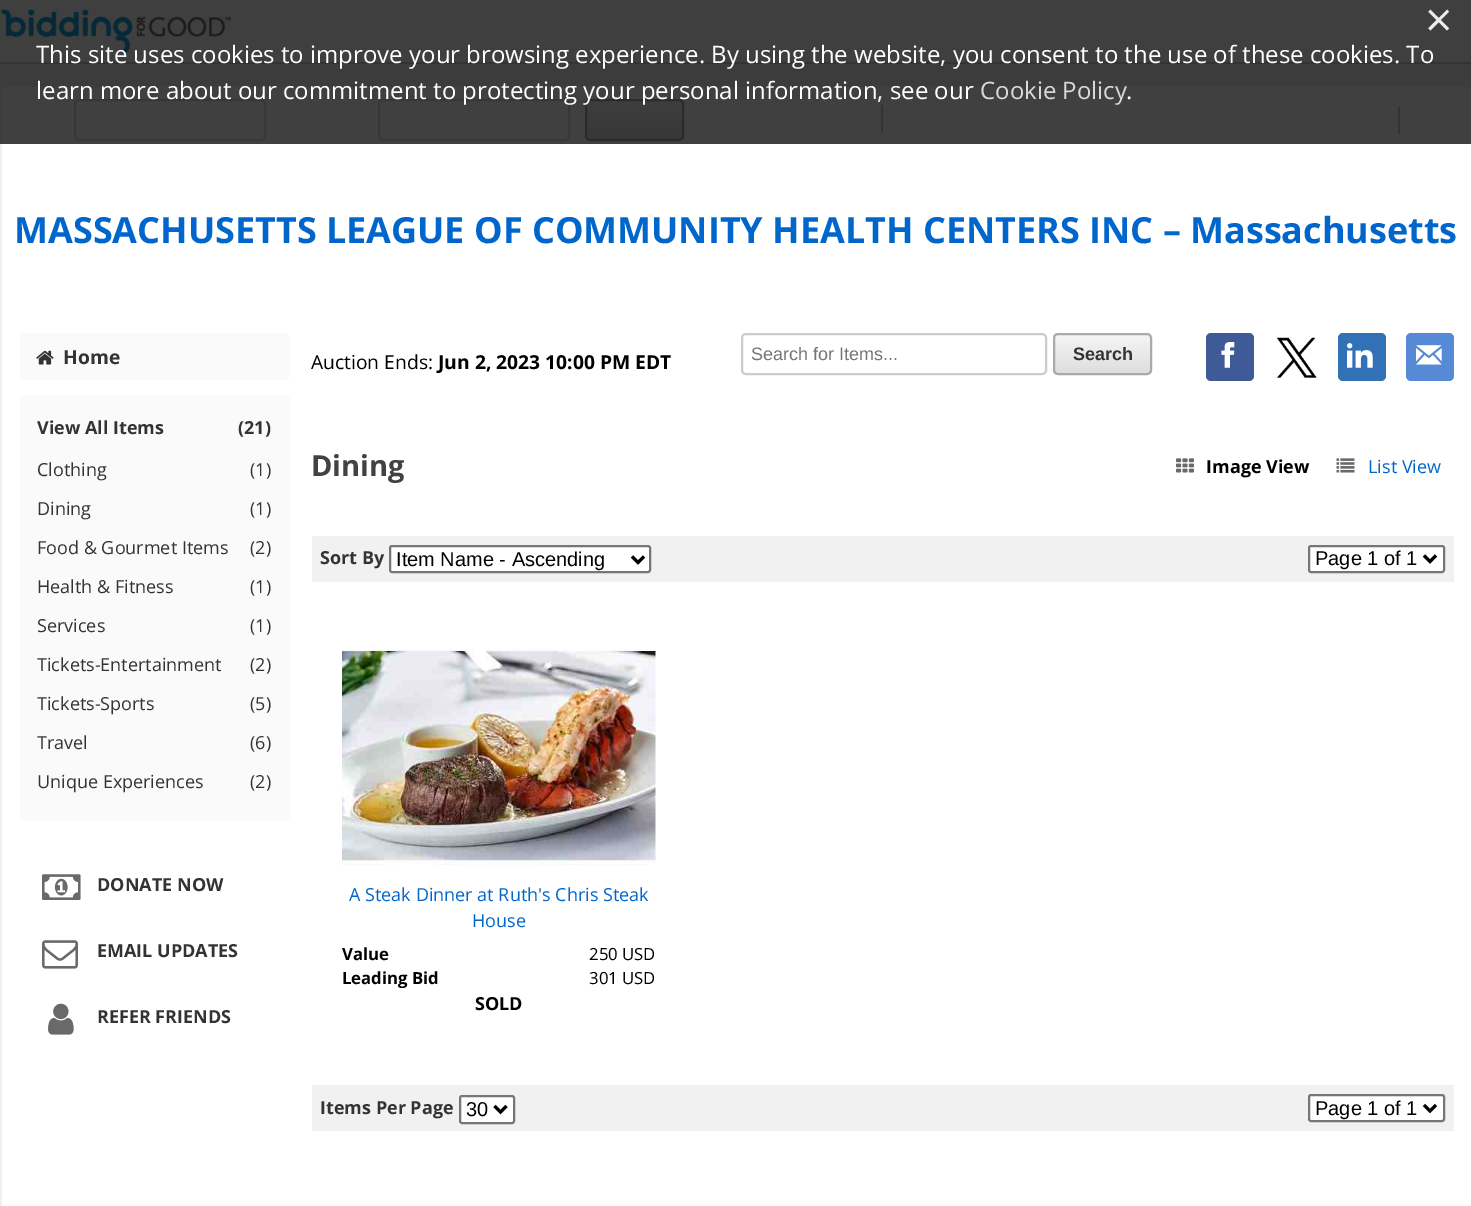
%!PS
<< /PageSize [1471 1206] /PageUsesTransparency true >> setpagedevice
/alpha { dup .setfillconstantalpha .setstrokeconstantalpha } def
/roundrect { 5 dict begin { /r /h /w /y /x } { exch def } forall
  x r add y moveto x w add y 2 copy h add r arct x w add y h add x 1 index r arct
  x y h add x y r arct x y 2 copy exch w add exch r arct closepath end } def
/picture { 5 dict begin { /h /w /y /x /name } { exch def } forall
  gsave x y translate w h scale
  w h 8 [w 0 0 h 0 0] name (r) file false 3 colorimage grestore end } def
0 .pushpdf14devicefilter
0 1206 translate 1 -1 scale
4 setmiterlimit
0.941 setgray
0 0 1471 1206 rectfill
0.98 setgray
0 0 1471 62 rectfill
0.8 setgray
0 62 1471 2 rectfill
(img1.rgb) 1 9 230 45 picture
1 setgray
newpath 7 87 moveto 1467 87 lineto 1470 87 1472 89 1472 92 curveto 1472 153 lineto 2 153 lineto 2 92 lineto 2 89 4 87 7 87 curveto closepath fill
0.867 setgray
2 setlinewidth
75 100 190 40 4 roundrect stroke
379 100 190 40 4 roundrect stroke
gsave
585 99 99 42 5 roundrect clip newpath
gsave newpath 585 101 moveto 684 101 lineto 684 140 lineto 585 140 lineto closepath clip newpath
<< /ShadingType 2 /ColorSpace /DeviceRGB /Coords [635 101 635 140] /Extend [true true] /Function << /FunctionType 2 /Domain [0 1] /C0 [0.957 0.961 0.961] /C1 [0.875 0.867 0.867] /N 1 >> >> shfill grestore
grestore
0.667 setgray
586 100 97 40 4 roundrect stroke
0.8 setgray
881 105 2 27 rectfill
1398 107 2 27 rectfill
0.75 alpha
0 setgray
0 0 1471 144 rectfill
/OpenSans-Regular [48 0 0 -48 0 0] selectfont
1 alpha
0.925 setgray
1425 37 moveto (×) show
/OpenSans-Regular [24 0 0 -24 0 0] selectfont
1 setgray
36 63 moveto (This site uses cookies to improve your browsing experience. By using the website, you consent to the use of these cookies. To) show
36 99 moveto (learn more about our commitment to protecting your personal information, see our) show
0.851 setgray
980 99 moveto (Cookie Policy) show
1 setgray
1126 99 moveto (.) show
2 153 1469 1053 rectfill
/OpenSans-Bold [36 0 0 -36 0 0] selectfont
0 0.4 0.8 setrgbcolor
14 243 moveto (MASSACHUSETTS LEAGUE OF COMMUNITY HEALTH CENTERS INC – Massachusetts) show
0.98 setgray
20 333 270 47 6 roundrect fill
(img2.rgb) 36 350 18 15 picture
/OpenSans-Bold [19.25 0 0 -19.25 0 0] selectfont
0.2 setgray
63 364 moveto (Home) show
0.98 setgray
20 395 270 426 6 roundrect fill
/OpenSans-Bold [18 0 0 -18 0 0] selectfont
0.2 setgray
37 434 moveto (View All Items) show
238 434 moveto (\(21\)) show
/OpenSans-Regular [18 0 0 -18 0 0] selectfont
37 476 moveto (Clothing) show
250 476 moveto (\(1\)) show
37 515 moveto (Dining) show
250 515 moveto (\(1\)) show
37 554 moveto (Food & Gourmet Items) show
250 554 moveto (\(2\)) show
37 593 moveto (Health & Fitness) show
250 593 moveto (\(1\)) show
37 632 moveto (Services) show
250 632 moveto (\(1\)) show
37 671 moveto (Tickets-Entertainment) show
250 671 moveto (\(2\)) show
37 710 moveto (Tickets-Sports) show
250 710 moveto (\(5\)) show
37 749 moveto (Travel) show
250 749 moveto (\(6\)) show
37 788 moveto (Unique Experiences) show
250 788 moveto (\(2\)) show
(img3.rgb) 42 874 39 26 picture
/OpenSans-Bold [18 0 0 -18 0 0] selectfont
97 891 moveto (DONATE NOW) show
(img4.rgb) 42 940 36 29 picture
97 957 moveto (EMAIL UPDATES) show
(img5.rgb) 48 1003 26 32 picture
97 1023 moveto (REFER FRIENDS) show
/OpenSans-Regular [19.25 0 0 -19.25 0 0] selectfont
0 setgray
311 369 moveto (Auction Ends:) show
/OpenSans-Bold [19.25 0 0 -19.25 0 0] selectfont
438 369 moveto (Jun 2, 2023 10:00 PM EDT) show
0.8 setgray
742 334 304 40 4 roundrect stroke
/LiberationSans-Regular [18 0 0 -18 0 0] selectfont
0.459 setgray
751 360 moveto (Search for Items...) show
gsave
1053 333 99 42 5 roundrect clip newpath
gsave newpath 1053 335 moveto 1152 335 lineto 1152 374 lineto 1053 374 lineto closepath clip newpath
<< /ShadingType 2 /ColorSpace /DeviceRGB /Coords [1103 335 1103 374] /Extend [true true] /Function << /FunctionType 2 /Domain [0 1] /C0 [0.957 0.961 0.961] /C1 [0.875 0.867 0.867] /N 1 >> >> shfill grestore
grestore
0.667 setgray
1054 334 97 40 4 roundrect stroke
/LiberationSans-Bold [18 0 0 -18 0 0] selectfont
0.2 setgray
1073 360 moveto (Search) show
0.243 0.357 0.596 setrgbcolor
1206 333 48 48 5 roundrect fill
(img6.rgb) 1221 342 14 26 picture
(img7.rgb) 1276 337 41 41 picture
0.2 0.443 0.718 setrgbcolor
1338 333 48 48 5 roundrect fill
(img8.rgb) 1347 343 26 25 picture
0.341 0.541 0.839 setrgbcolor
1406 333 48 48 5 roundrect fill
(img9.rgb) 1416 345 26 20 picture
/OpenSans-Bold [29 0 0 -29 0 0] selectfont
0.259 setgray
311 476 moveto (Dining) show
(img10.rgb) 1176 458 18 15 picture
/OpenSans-Bold [18 0 0 -18 0 0] selectfont
0 setgray
1206 473 moveto (Image View) show
(img11.rgb) 1336 458 19 15 picture
/OpenSans-Regular [18 0 0 -18 0 0] selectfont
0 0.4 0.8 setrgbcolor
1368 473 moveto (List View) show
0.945 setgray
312 536 1142 46 rectfill
/OpenSans-Bold [18 0 0 -18 0 0] selectfont
0.2 setgray
320 564 moveto (Sort By) show
1 setgray
390 546 260 26 2 roundrect gsave fill grestore
0.463 setgray
stroke
0 setgray
3 setlinewidth
newpath 632 556.5 moveto 638 562.5 lineto 644 556.5 lineto stroke
/LiberationSans-Regular [20 0 0 -20 0 0] selectfont
396 566 moveto (Item Name - Ascending) show
1 setgray
1309 546 135 26 2 roundrect gsave fill grestore
0.463 setgray
2 setlinewidth
stroke
0 setgray
3 setlinewidth
newpath 1424 555.5 moveto 1430 561.5 lineto 1436 555.5 lineto stroke
1315 565 moveto (Page 1 of 1) show
(img12.rgb) 342 649 314 217 picture
/OpenSans-Regular [18 0 0 -18 0 0] selectfont
0 0.4 0.8 setrgbcolor
349 901 moveto (A Steak Dinner at Ruth's Chris Steak) show
472 927 moveto (House) show
/OpenSans-Bold [16.75 0 0 -16.75 0 0] selectfont
0 setgray
342 960 moveto (Value) show
/OpenSans-Regular [16.75 0 0 -16.75 0 0] selectfont
589 960 moveto (250 USD) show
/OpenSans-Bold [16.75 0 0 -16.75 0 0] selectfont
342 984 moveto (Leading Bid) show
/OpenSans-Regular [16.75 0 0 -16.75 0 0] selectfont
589 984 moveto (301 USD) show
/OpenSans-Bold [18 0 0 -18 0 0] selectfont
475 1010 moveto (SOLD) show
0.945 setgray
312 1085 1142 46 rectfill
0.2 setgray
320 1114 moveto (Items Per Page) show
1 setgray
460 1096 54 27 2 roundrect gsave fill grestore
0.463 setgray
2 setlinewidth
stroke
0 setgray
3 setlinewidth
newpath 494.5 1106 moveto 500.5 1112 lineto 506.5 1106 lineto stroke
/LiberationSans-Regular [20 0 0 -20 0 0] selectfont
466 1116 moveto (30) show
1 setgray
1309 1095 135 26 2 roundrect gsave fill grestore
0.463 setgray
2 setlinewidth
stroke
0 setgray
3 setlinewidth
newpath 1424 1105 moveto 1430 1111 lineto 1436 1105 lineto stroke
1315 1115 moveto (Page 1 of 1) show
.poppdf14devicefilter showpage
